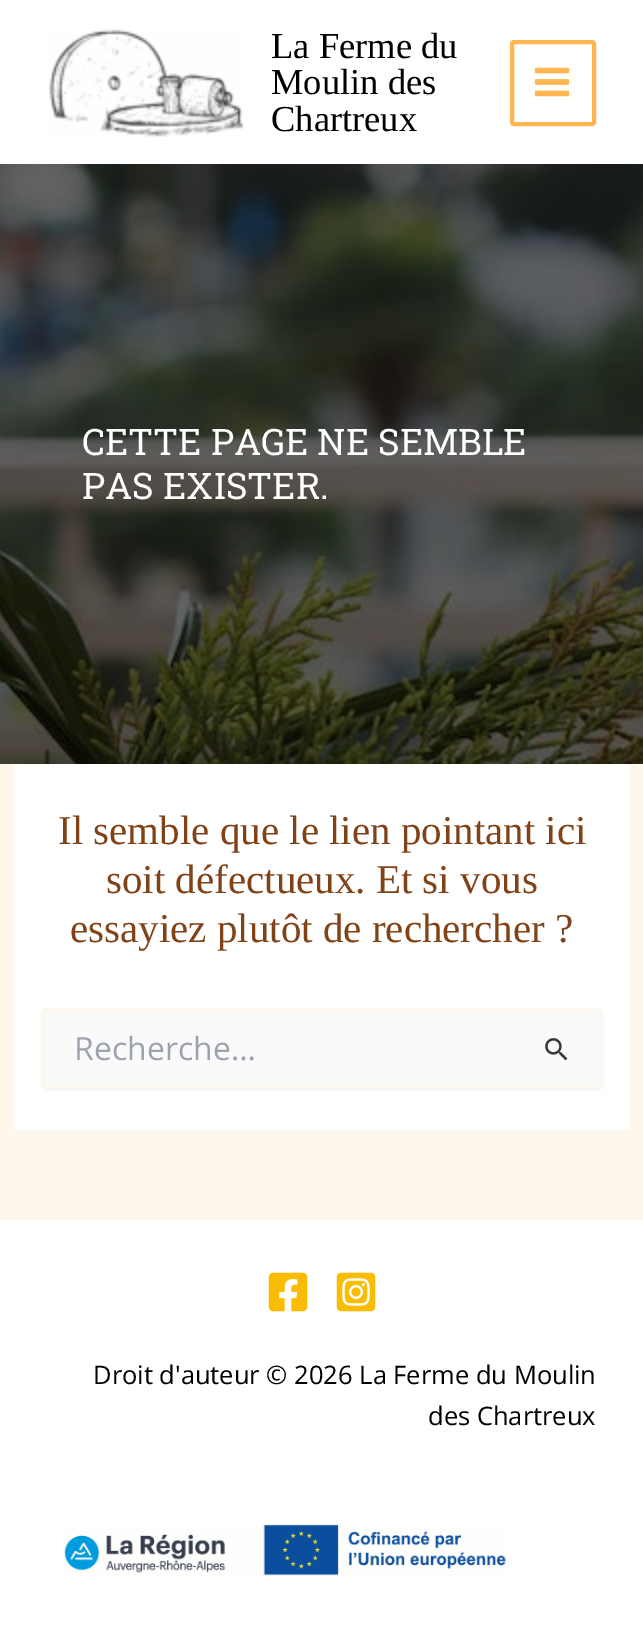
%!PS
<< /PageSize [643 1646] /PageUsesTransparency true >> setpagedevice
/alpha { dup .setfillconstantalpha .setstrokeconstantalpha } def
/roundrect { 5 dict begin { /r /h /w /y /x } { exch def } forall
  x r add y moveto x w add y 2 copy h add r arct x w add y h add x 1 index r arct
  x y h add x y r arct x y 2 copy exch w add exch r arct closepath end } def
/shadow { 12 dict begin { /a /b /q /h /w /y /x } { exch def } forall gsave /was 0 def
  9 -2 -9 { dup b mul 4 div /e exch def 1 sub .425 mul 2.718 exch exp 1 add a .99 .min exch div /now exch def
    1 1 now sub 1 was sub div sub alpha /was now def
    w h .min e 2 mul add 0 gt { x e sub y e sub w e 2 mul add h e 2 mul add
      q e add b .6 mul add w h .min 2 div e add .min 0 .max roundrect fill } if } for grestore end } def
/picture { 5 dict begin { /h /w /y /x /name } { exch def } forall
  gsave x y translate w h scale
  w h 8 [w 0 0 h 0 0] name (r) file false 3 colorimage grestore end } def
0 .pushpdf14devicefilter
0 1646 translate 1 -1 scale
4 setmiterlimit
0.996 0.969 0.925 setrgbcolor
0 0 643 1646 rectfill
1 setgray
0 0 643 164 rectfill
(img1.rgb) 49 29 195 108 picture
/LiberationSerif-Regular [36.5 0 0 -36.5 0 0] selectfont
0 setgray
271 58 moveto (La Ferme du) show
271 94 moveto (Moulin des) show
271 131 moveto (Chartreux) show
1 0.714 0.314 setrgbcolor
4 setlinewidth
512 42 82 82 2 roundrect stroke
(img2.rgb) 534 67 36 30 picture
(img3.rgb) 0 164 643 600 picture
/RobotoSlab-Regular [36.5 0 0 -36.5 0 0] selectfont
1 setgray
82 455 moveto (CETTE PAGE NE SEMBLE) show
82 499 moveto (PAS EXISTER.) show
14 764 616 366 rectfill
/LiberationSerif-Regular [41 0 0 -41 0 0] selectfont
0.502 0.259 0.086 setrgbcolor
58 844 moveto (Il semble que le lien pointant ici) show
106 893 moveto (soit défectueux. Et si vous) show
70 942 moveto (essayiez plutôt de rechercher ?) show
0 setgray
42 1010 560 80 4 2 0.05 shadow
0.98 setgray
43 1009 558 78 3 roundrect gsave fill grestore
0.996 0.969 0.925 setrgbcolor
2 setlinewidth
stroke
/OpenSans-Regular [32 0 0 -32 0 0] selectfont
0.612 0.639 0.686 setrgbcolor
74 1060 moveto (Recherche…) show
(img4.rgb) 545 1038 23 23 picture
1 setgray
0 1220 643 426 rectfill
(img5.rgb) 268 1272 40 40 picture
(img6.rgb) 336 1272 40 40 picture
/OpenSans-Regular [25.5 0 0 -25.5 0 0] selectfont
0 setgray
93 1384 moveto (Droit d'auteur © 2026 La Ferme du Moulin) show
428 1425 moveto (des Chartreux) show
(img7.rgb) 64 1524 442 52 picture
.poppdf14devicefilter showpage
